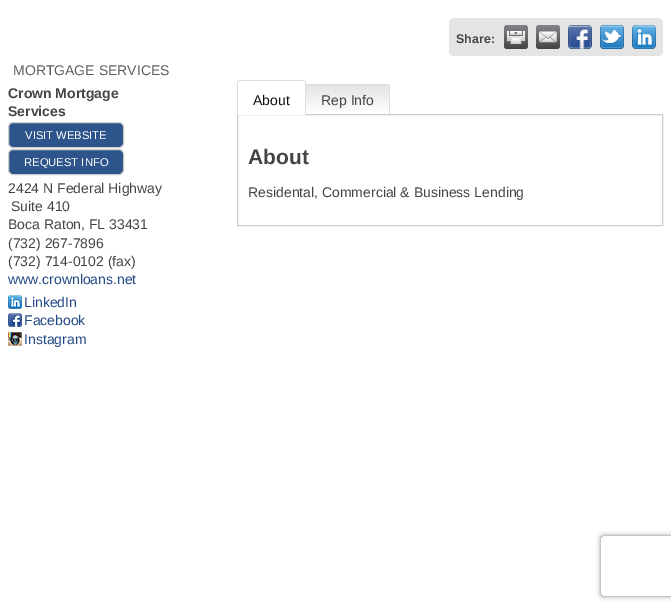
%!PS
<< /PageSize [671 610] /PageUsesTransparency true >> setpagedevice
/alpha { dup .setfillconstantalpha .setstrokeconstantalpha } def
/roundrect { 5 dict begin { /r /h /w /y /x } { exch def } forall
  x r add y moveto x w add y 2 copy h add r arct x w add y h add x 1 index r arct
  x y h add x y r arct x y 2 copy exch w add exch r arct closepath end } def
/shadow { 12 dict begin { /a /b /q /h /w /y /x } { exch def } forall gsave /was 0 def
  9 -2 -9 { dup b mul 4 div /e exch def 1 sub .425 mul 2.718 exch exp 1 add a .99 .min exch div /now exch def
    1 1 now sub 1 was sub div sub alpha /was now def
    w h .min e 2 mul add 0 gt { x e sub y e sub w e 2 mul add h e 2 mul add
      q e add b .6 mul add w h .min 2 div e add .min 0 .max roundrect fill } if } for grestore end } def
/picture { 5 dict begin { /h /w /y /x /name } { exch def } forall
  gsave x y translate w h scale
  w h 8 [w 0 0 h 0 0] name (r) file false 3 colorimage grestore end } def
0 .pushpdf14devicefilter
0 610 translate 1 -1 scale
4 setmiterlimit
1 setgray
0 0 671 610 rectfill
0.894 setgray
449 18 214 38 5 roundrect fill
/LiberationSans-Bold [12.5 0 0 -12.5 0 0] selectfont
0.267 setgray
456 43 moveto (Share:) show
(img1.rgb) 504 25 24 24 picture
(img2.rgb) 536 25 24 24 picture
(img3.rgb) 568 25 24 24 picture
(img4.rgb) 600 25 24 24 picture
(img5.rgb) 632 25 24 24 picture
/LiberationSans-Regular [14 0 0 -14 0 0] selectfont
0.369 setgray
13 75 moveto (MORTGAGE SERVICES) show
/LiberationSans-Bold [14 0 0 -14 0 0] selectfont
0.267 setgray
8 98 moveto (Crown Mortgage) show
8 116 moveto (Services) show
0.176 0.329 0.545 setrgbcolor
8.5 122.5 115 25 4.5 roundrect gsave fill grestore
0.8 setgray
stroke
/LiberationSans-Regular [11.25 0 0 -11.25 0 0] selectfont
1 setgray
25 139 moveto (VISIT WEBSITE) show
0.176 0.329 0.545 setrgbcolor
8.5 149.5 115 25 4.5 roundrect gsave fill grestore
0.8 setgray
stroke
1 setgray
24 166 moveto (REQUEST INFO) show
/LiberationSans-Regular [14 0 0 -14 0 0] selectfont
0.267 setgray
8 193 moveto (2424 N Federal Highway) show
11 211 moveto (Suite 410) show
8 229 moveto (Boca Raton, FL 33431) show
8 248 moveto (\(732\) 267-7896) show
8 266 moveto (\(732\) 714-0102 \(fax\)) show
0.133 0.282 0.518 setrgbcolor
8 284 moveto (www.crownloans.net) show
(img6.rgb) 8 295 14 14 picture
24 307 moveto (LinkedIn) show
(img7.rgb) 8 313 14 14 picture
24 325 moveto (Facebook) show
(img8.rgb) 8 332 14 14 picture
24 344 moveto (Instagram) show
0.8 setgray
237.5 114.5 425 111 rectstroke
1 setgray
newpath 239 81 moveto 304 81 lineto 304.5 81 305 81.5 305 82 curveto 305 115 lineto 238 115 lineto 238 82 lineto 238 81.5 238.5 81 239 81 curveto closepath fill
0.867 setgray
238 80 67 1 rectfill
305 81 1 34 rectfill
237 81 1 34 rectfill
0.067 setgray
253 105 moveto (About) show
gsave newpath 306 85 moveto 388 85 lineto 388.5 85 389 85.5 389 86 curveto 389 114 lineto 306 114 lineto closepath clip newpath
<< /ShadingType 2 /ColorSpace /DeviceRGB /Coords [348 85 348 114] /Extend [true true] /Function << /FunctionType 2 /Domain [0 1] /C0 [0.894 0.894 0.894] /C1 [1 1 1] /N 1 >> >> shfill grestore
0.867 setgray
306 84 83 1 rectfill
389 85 1 29 rectfill
0.267 setgray
321 105 moveto (Rep Info) show
/LiberationSans-Bold [21 0 0 -21 0 0] selectfont
248 164 moveto (About) show
/LiberationSans-Regular [14 0 0 -14 0 0] selectfont
248 197 moveto (Residental, Commercial & Business Lending) show
gsave
newpath 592 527 moveto 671 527 lineto 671 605 lineto 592 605 lineto closepath 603 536 moveto 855 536 lineto 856 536 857 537 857 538 curveto 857 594 lineto 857 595 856 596 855 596 curveto 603 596 lineto 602 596 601 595 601 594 curveto 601 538 lineto 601 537 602 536 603 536 curveto closepath eoclip newpath
0.502 setgray
601 536 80 60 2 2.5 1 shadow
grestore
.poppdf14devicefilter showpage
